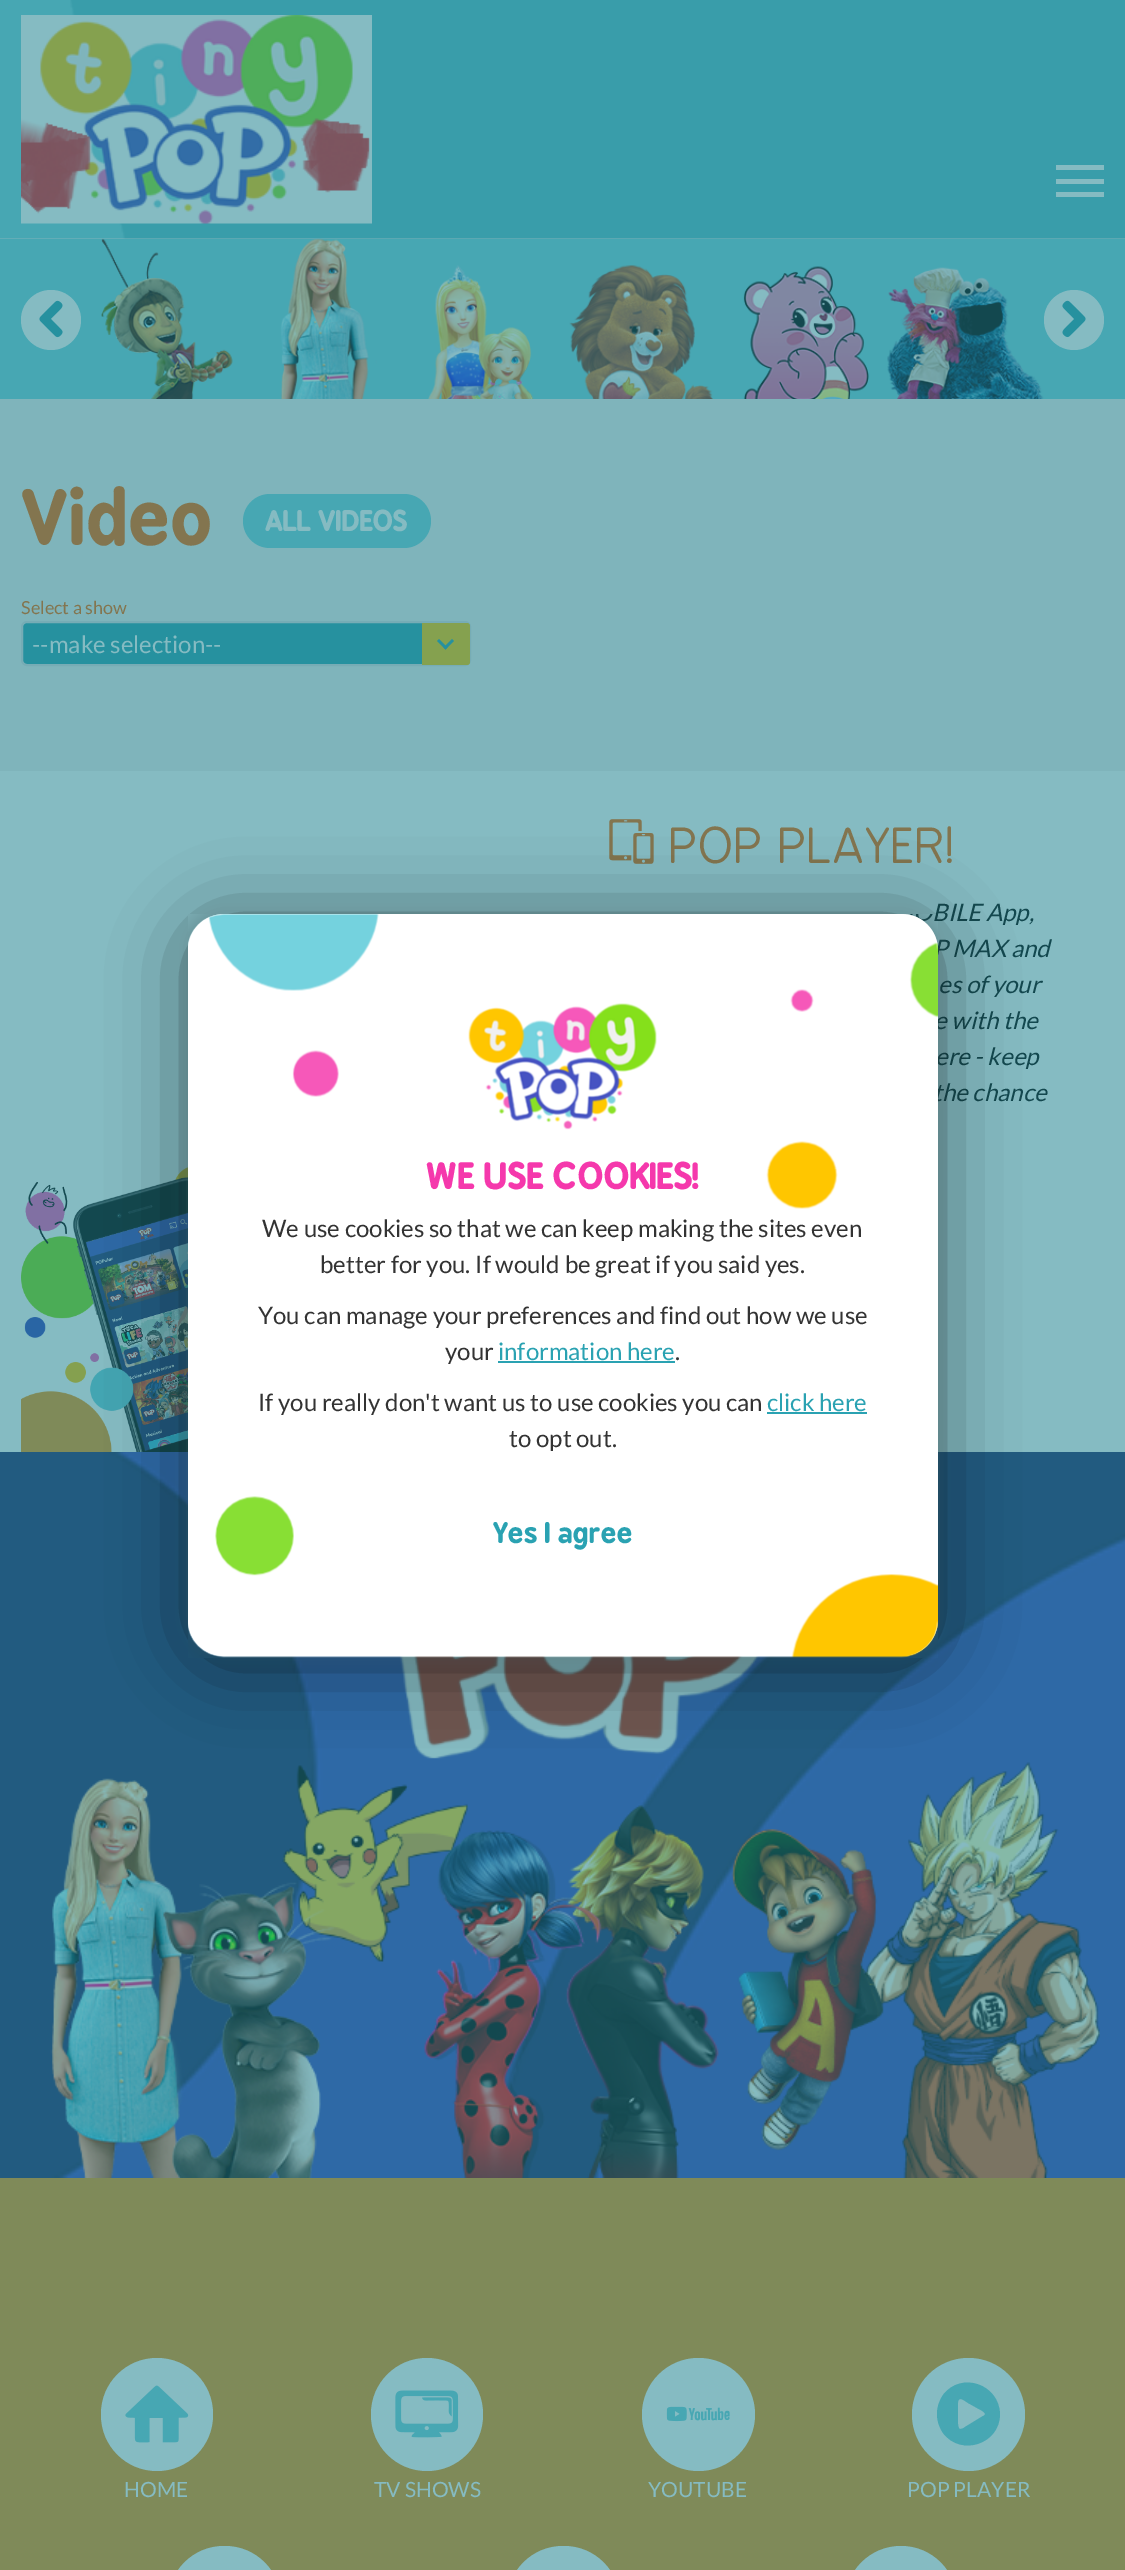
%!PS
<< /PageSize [1125 2570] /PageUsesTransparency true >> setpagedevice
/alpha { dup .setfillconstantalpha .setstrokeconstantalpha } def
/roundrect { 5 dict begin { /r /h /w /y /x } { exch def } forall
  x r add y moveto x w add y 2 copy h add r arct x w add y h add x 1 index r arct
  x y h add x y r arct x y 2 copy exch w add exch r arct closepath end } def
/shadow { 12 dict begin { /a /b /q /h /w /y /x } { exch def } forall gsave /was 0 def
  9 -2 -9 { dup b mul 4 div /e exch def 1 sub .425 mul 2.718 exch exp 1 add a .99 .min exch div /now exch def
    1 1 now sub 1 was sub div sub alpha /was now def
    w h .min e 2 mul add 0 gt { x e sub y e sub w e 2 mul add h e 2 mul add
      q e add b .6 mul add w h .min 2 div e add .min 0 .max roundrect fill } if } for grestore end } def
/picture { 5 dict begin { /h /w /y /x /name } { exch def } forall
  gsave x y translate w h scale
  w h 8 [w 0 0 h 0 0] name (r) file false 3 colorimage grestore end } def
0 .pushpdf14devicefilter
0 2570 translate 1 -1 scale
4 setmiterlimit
0.498 0.706 0.733 setrgbcolor
0 0 1125 2570 rectfill
0.278 0.655 0.702 setrgbcolor
0 239 1125 160 rectfill
(img4.rgb) 101 238 132 161 picture
(img5.rgb) 280 238 97 161 picture
(img1.rgb) 0 0 1125 239 picture
(img2.rgb) 21 15 351 209 picture
0.522 0.733 0.761 setrgbcolor
1056 165 48 5 rectfill
1056 179 48 5 rectfill
1056 192 48 5 rectfill
newpath 51 320 30 0 360 arc closepath fill
(img3.rgb) 39 300 24 38 picture
(img6.rgb) 428 265 106 134 picture
(img7.rgb) 569 265 144 134 picture
(img8.rgb) 743 266 127 133 picture
(img9.rgb) 887 267 157 132 picture
newpath 1074 320 30 0 360 arc closepath fill
(img10.rgb) 1062 300 24 38 picture
/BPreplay-Bold [72 0 0 -72 0 0] selectfont
0.514 0.459 0.31 setrgbcolor
21 545 moveto (Video) show
0.278 0.655 0.702 setrgbcolor
243 494 188 54 27 roundrect fill
/BPreplay-Bold [27 0 0 -27 0 0] selectfont
0.522 0.733 0.761 setrgbcolor
265 531 moveto (ALL VIDEOS) show
/Lato-Regular [18 0 0 -18 0 0] selectfont
0.514 0.459 0.31 setrgbcolor
21 614 moveto (Select a show) show
0.149 0.569 0.624 setrgbcolor
22 622 448 43 5 roundrect gsave fill grestore
0.463 0.675 0.71 setrgbcolor
2 setlinewidth
stroke
/Lato-Regular [24 0 0 -24 0 0] selectfont
0.522 0.733 0.761 setrgbcolor
32 653 moveto (--make selection--) show
0.522 0.631 0.31 setrgbcolor
newpath 422 623 moveto 467 623 lineto 468.5 623 470 624.5 470 626 curveto 470 662 lineto 470 663.5 468.5 665 467 665 curveto 422 665 lineto closepath fill
0.149 0.569 0.624 setrgbcolor
newpath 452 639 moveto 454 641 lineto 445.5 649.5 lineto 443.5 647.5 lineto closepath fill
newpath 439 639 moveto 447.5 647.5 lineto 445.5 649.5 lineto 437 641 lineto closepath fill
0.522 0.733 0.761 setrgbcolor
0 771 1125 681 rectfill
(img11.rgb) 609 819 45 45 picture
/BPreplay-Regular [48 0 0 -48 0 0] selectfont
0.514 0.459 0.31 setrgbcolor
671 863 moveto (POP PLAYER!) show
/Lato-Italic [24 0 0 -24 0 0] selectfont
0.075 0.282 0.31 setrgbcolor
932 921 moveto (BILE App,) show
933 957 moveto (P MAX and) show
938 993 moveto (es of your) show
934 1029 moveto (e with the) show
935 1065 moveto (ere - keep) show
933 1101 moveto (the chance) show
(img12.rgb) 21 1167 167 285 picture
(img13.rgb) 0 1452 1125 726 picture
(img14.rgb) 399 1656 360 103 picture
(img15.rgb) 50 1762 1050 416 picture
0.498 0.541 0.349 setrgbcolor
0 2178 1125 392 rectfill
0.522 0.733 0.761 setrgbcolor
101 2358 112 113 56 roundrect fill
(img16.rgb) 125 2385 64 58 picture
/Lato-Regular [21 0 0 -21 0 0] selectfont
124 2497 moveto (HOME) show
371 2358 112 113 56 roundrect fill
(img17.rgb) 395 2390 64 48 picture
374 2497 moveto (TV SHOWS) show
newpath 698.5 2414.5 56.5 0 360 arc closepath fill
(img18.rgb) 666 2406 64 16 picture
648 2497 moveto (YOUTUBE) show
newpath 968.5 2414.5 56.5 0 360 arc closepath fill
0.278 0.655 0.702 setrgbcolor
newpath 937 2414 moveto 937 2407 939 2401 943 2395 curveto 961 2371 999 2384 1000 2414 curveto 1000 2444 961 2457 943 2433 curveto 939 2427 937 2421 937 2414 curveto closepath 958 2414 moveto 958 2416 957 2429 960 2429 curveto 962 2429 964 2428 965 2427 curveto 983 2416 lineto 984 2416 985 2415 985 2414 curveto 985 2412 979 2409 977 2408 curveto 968 2403 lineto 965 2401 958 2395 958 2403 curveto closepath fill
0.522 0.733 0.761 setrgbcolor
907 2497 moveto (POP PLAYER) show
168 2546 113 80 56 roundrect fill
507 2546 113 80 56 roundrect fill
845 2546 112 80 56 roundrect fill
0.376 0.584 0.612 setrgbcolor
188 912 750 743 36 7.5 0.3 shadow
0 setgray
188 921 750 743 36 37.5 0.5 shadow
1 setgray
188 914 750 742 36 roundrect fill
(img19.rgb) 188 914 750 744 picture
(img20.rgb) 468 1003 189 127 picture
/BPreplay-Bold [34.5 0 0 -34.5 0 0] selectfont
0.961 0.22 0.675 setrgbcolor
426 1189 moveto (WE USE COOKIES!) show
/Lato-Regular [24 0 0 -24 0 0] selectfont
0.2 setgray
262 1237 moveto (We use cookies so that we can keep making the sites even) show
320 1273 moveto (better for you. If would be great if you said yes.) show
258 1324 moveto (You can manage your preferences and find out how we use) show
445 1360 moveto (your) show
0.165 0.635 0.698 setrgbcolor
498 1360 moveto (information here) show
498 1361 177 2 rectfill
0.2 setgray
675 1360 moveto (.) show
258 1411 moveto (If you really don't want us to use cookies you can) show
0.165 0.635 0.698 setrgbcolor
767 1411 moveto (click here) show
767 1412 100 2 rectfill
0.2 setgray
509 1447 moveto (to opt out.) show
/BPreplay-Bold [27 0 0 -27 0 0] selectfont
0.165 0.635 0.698 setrgbcolor
493 1543 moveto (Yes I agree) show
.poppdf14devicefilter showpage
